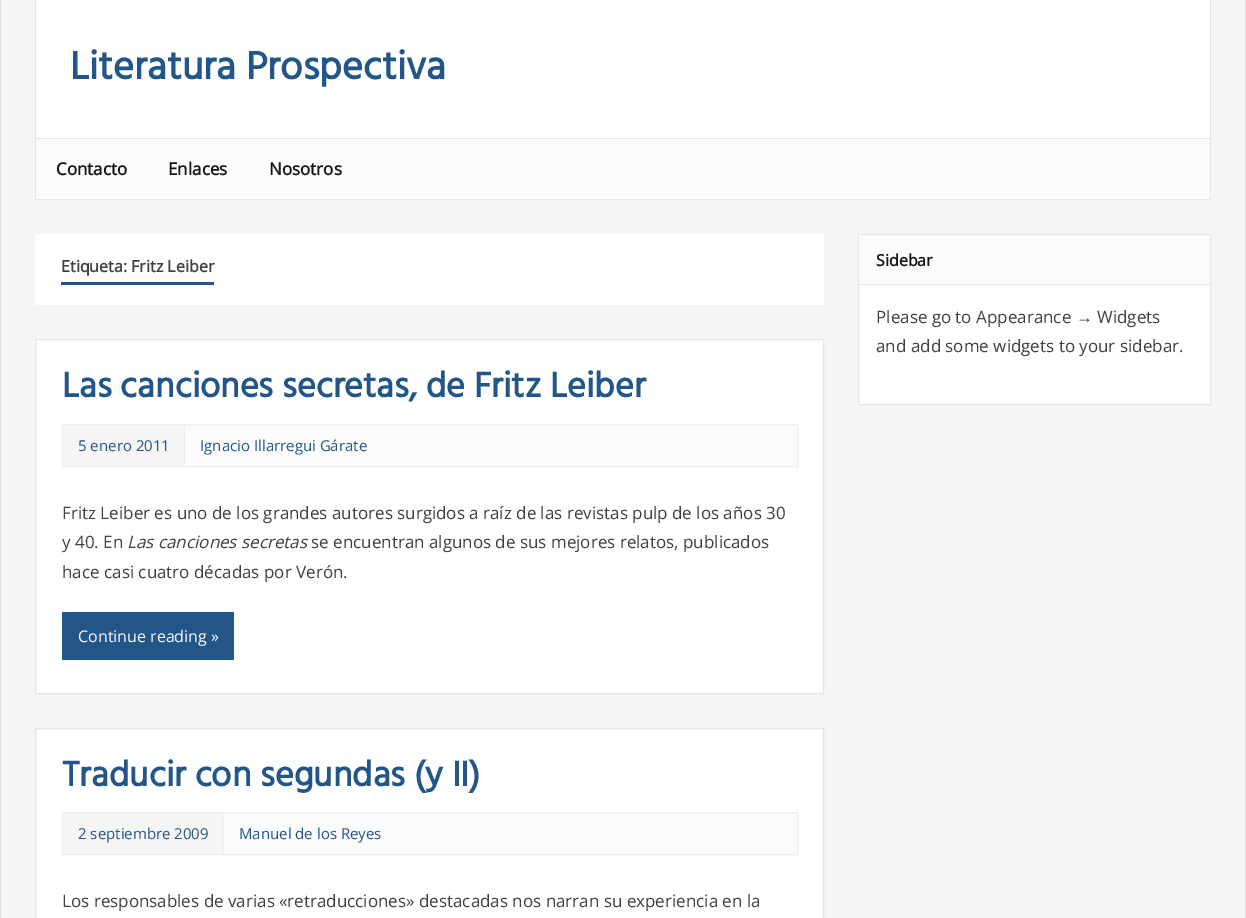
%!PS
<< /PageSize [1246 918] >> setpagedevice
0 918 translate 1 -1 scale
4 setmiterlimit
0.961 setgray
0 0 1246 918 rectfill
0.867 setgray
1245 0 1 918 rectfill
0 0 1 918 rectfill
1 setgray
36 0 1174 138 rectfill
0.898 setgray
1210 0 1 200 rectfill
35 138 1176 1 rectfill
35 0 1 139 rectfill
/Hind-Bold [40 0 0 -40 0 0] selectfont
0.133 0.333 0.533 setrgbcolor
70 79 moveto (Literatura Prospectiva) show
0.984 setgray
36 139 1174 60 rectfill
0.898 setgray
35 199 1176 1 rectfill
35 139 1 61 rectfill
/OpenSans-Bold [17 0 0 -17 0 0] selectfont
0.082 setgray
56 175 moveto (Contacto) show
168 175 moveto (Enlaces) show
269 175 moveto (Nosotros) show
1 setgray
35 234 789 71 rectfill
0.133 0.333 0.533 setrgbcolor
61 282 153 3 rectfill
/OpenSans-Bold [16 0 0 -16 0 0] selectfont
0.251 setgray
61 272 moveto (Etiqueta: Fritz Leiber) show
1 setgray
newpath 35.5 339.5 moveto 823.5 339.5 lineto 823.5 693.5 lineto 35.5 693.5 lineto closepath gsave fill grestore
0.898 setgray
stroke
/Hind-Bold [36 0 0 -36 0 0] selectfont
0.133 0.333 0.533 setrgbcolor
62 397 moveto (Las canciones secretas, de Fritz Leiber) show
0.984 setgray
185 425 612 41 rectfill
0.933 setgray
62.5 424.5 735 42 rectstroke
0.961 setgray
63 425 121 41 rectfill
0.933 setgray
184 425 1 41 rectfill
/OpenSans-Regular [15 0 0 -15 0 0] selectfont
0.133 0.333 0.533 setrgbcolor
78 451 moveto (5 enero 2011) show
200 451 moveto (Ignacio Illarregui Gárate) show
/OpenSans-Regular [17 0 0 -17 0 0] selectfont
0.251 setgray
62 519 moveto (Fritz Leiber es uno de los grandes autores surgidos a raíz de las revistas pulp de los años 30) show
62 548 moveto (y 40. En) show
/OpenSans-Italic [17 0 0 -17 0 0] selectfont
127 548 moveto (Las canciones secretas) show
/OpenSans-Regular [17 0 0 -17 0 0] selectfont
311 548 moveto (se encuentran algunos de sus mejores relatos, publicados) show
62 578 moveto (hace casi cuatro décadas por Verón.) show
0.133 0.333 0.533 setrgbcolor
62 612 172 48 rectfill
/OpenSans-Regular [16 0 0 -16 0 0] selectfont
1 setgray
78 642 moveto (Continue reading ») show
newpath 35.5 728.5 moveto 823.5 728.5 lineto 823.5 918.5 lineto 35.5 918.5 lineto closepath gsave fill grestore
0.898 setgray
stroke
/Hind-Bold [36 0 0 -36 0 0] selectfont
0.133 0.333 0.533 setrgbcolor
62 786 moveto (Traducir con segundas \(y II\)) show
0.984 setgray
224 813 573 41 rectfill
0.933 setgray
62.5 812.5 735 42 rectstroke
0.961 setgray
63 813 160 41 rectfill
0.933 setgray
223 813 1 41 rectfill
/OpenSans-Regular [15 0 0 -15 0 0] selectfont
0.133 0.333 0.533 setrgbcolor
78 839 moveto (2 septiembre 2009) show
239 839 moveto (Manuel de los Reyes) show
/OpenSans-Regular [17 0 0 -17 0 0] selectfont
0.251 setgray
62 907 moveto (Los responsables de varias «retraducciones» destacadas nos narran su experiencia en la) show
1 setgray
859 285 351 119 rectfill
0.898 setgray
858.5 234.5 352 170 rectstroke
0.984 setgray
859 235 351 49 rectfill
0.898 setgray
859 284 351 1 rectfill
/OpenSans-Bold [16 0 0 -16 0 0] selectfont
0.082 setgray
876 266 moveto (Sidebar) show
/OpenSans-Regular [17 0 0 -17 0 0] selectfont
0.251 setgray
876 323 moveto (Please go to Appearance) show
/LiberationSans-Regular [17 0 0 -17 0 0] selectfont
1076 323 moveto (→) show
/OpenSans-Regular [17 0 0 -17 0 0] selectfont
1097 323 moveto (Widgets) show
876 352 moveto (and add some widgets to your sidebar.) show
showpage
